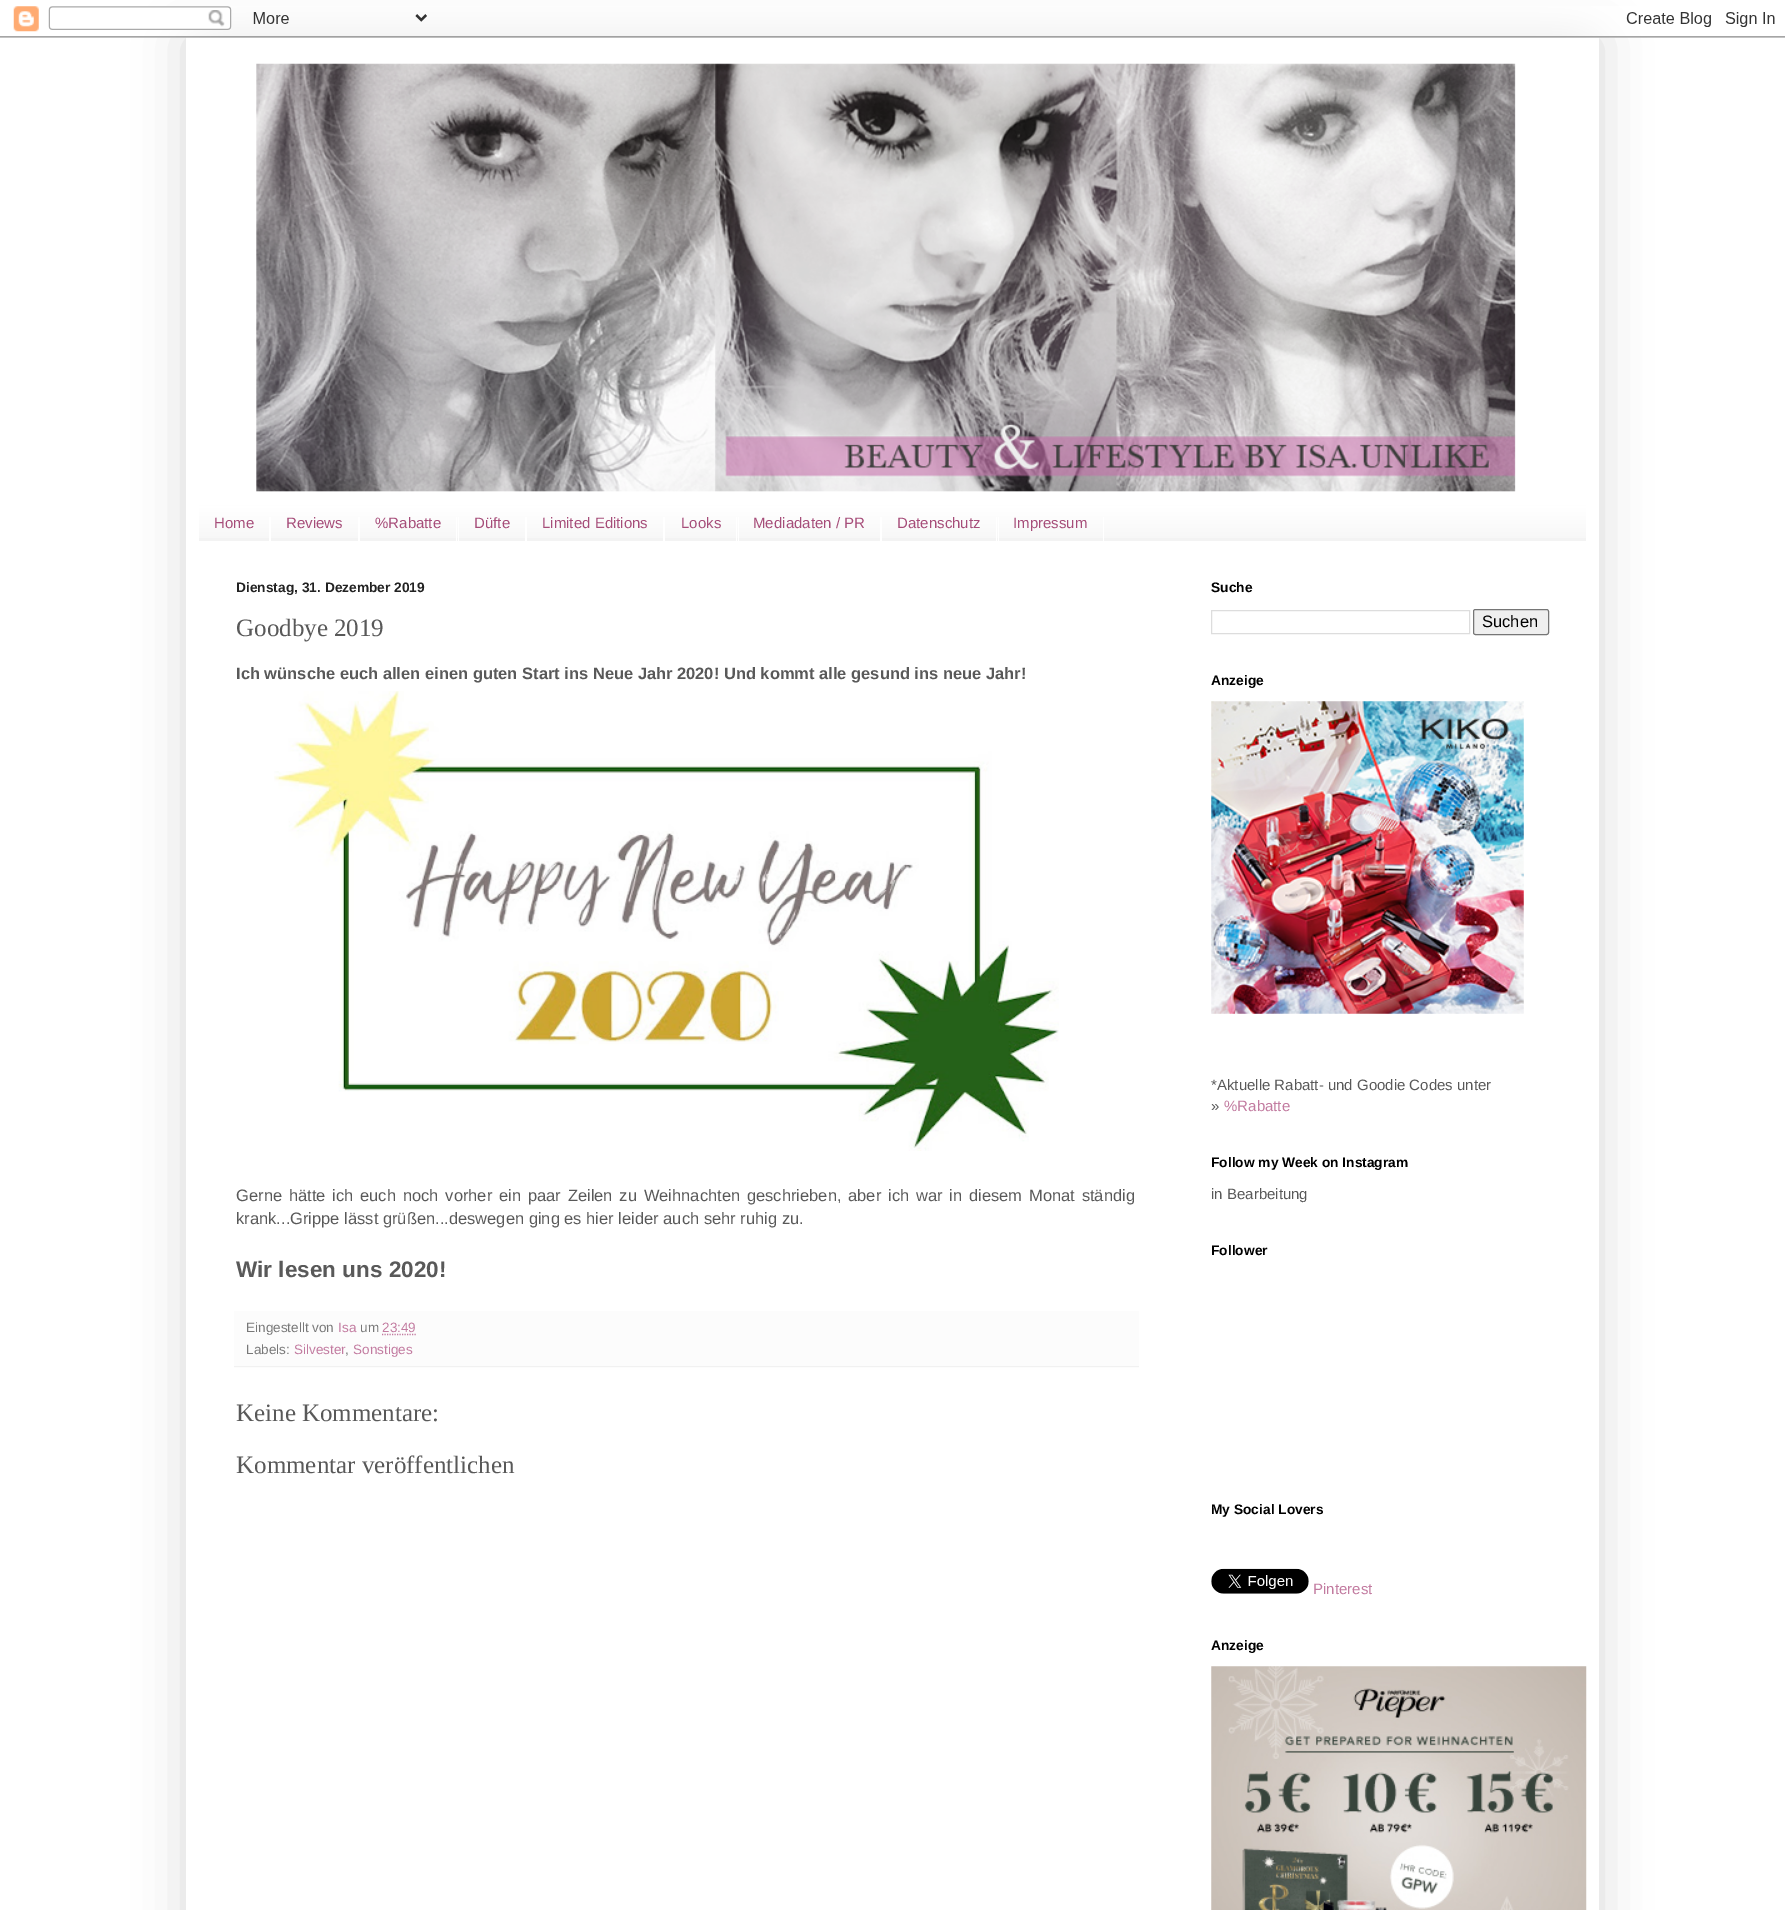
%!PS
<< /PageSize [1785 1910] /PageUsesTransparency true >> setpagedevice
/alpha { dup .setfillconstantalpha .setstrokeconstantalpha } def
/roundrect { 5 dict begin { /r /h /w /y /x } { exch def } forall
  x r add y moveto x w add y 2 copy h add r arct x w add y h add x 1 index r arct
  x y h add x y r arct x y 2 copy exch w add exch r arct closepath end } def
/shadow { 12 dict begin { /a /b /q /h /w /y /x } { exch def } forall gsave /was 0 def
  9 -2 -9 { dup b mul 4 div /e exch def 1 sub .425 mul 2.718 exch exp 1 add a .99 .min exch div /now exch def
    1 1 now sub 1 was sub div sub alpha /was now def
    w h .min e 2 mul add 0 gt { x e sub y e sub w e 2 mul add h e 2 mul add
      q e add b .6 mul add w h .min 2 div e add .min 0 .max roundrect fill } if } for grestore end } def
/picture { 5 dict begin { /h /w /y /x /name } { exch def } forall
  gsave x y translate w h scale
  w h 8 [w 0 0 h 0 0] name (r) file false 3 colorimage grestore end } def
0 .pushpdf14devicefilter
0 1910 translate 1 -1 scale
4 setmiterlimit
1 setgray
0 0 1785 1910 rectfill
0 setgray
186 38 1413 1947 0 25 0.15 shadow
(img1.rgb) 0 6 1785 32 picture
1 setgray
186 38 1413 1872 rectfill
(img2.rgb) 256 63 1260 429 picture
0.953 setgray
199 505 1387 36 rectfill
(img3.rgb) 199 505 1387 33 picture
1 setgray
269 517 2 24 rectfill
/LiberationSans-Regular [15 0 0 -15 0 0] selectfont
0.651 0.302 0.475 setrgbcolor
214 528 moveto (Home) show
1 setgray
358 517 2 24 rectfill
0.651 0.302 0.475 setrgbcolor
286 528 moveto (Reviews) show
1 setgray
456 517 1 24 rectfill
0.651 0.302 0.475 setrgbcolor
375 528 moveto (%Rabatte) show
1 setgray
525 517 2 24 rectfill
458 517 1 24 rectfill
0.651 0.302 0.475 setrgbcolor
474 528 moveto (Düfte) show
1 setgray
663 517 2 24 rectfill
0.651 0.302 0.475 setrgbcolor
542 528 moveto (Limited Editions) show
1 setgray
736 517 1 24 rectfill
0.651 0.302 0.475 setrgbcolor
681 528 moveto (Looks) show
1 setgray
880 517 2 24 rectfill
738 517 1 24 rectfill
0.651 0.302 0.475 setrgbcolor
753 528 moveto (Mediadaten / PR) show
1 setgray
996 517 1 24 rectfill
0.651 0.302 0.475 setrgbcolor
897 528 moveto (Datenschutz) show
1 setgray
1103 517 1 24 rectfill
998 517 1 24 rectfill
0.651 0.302 0.475 setrgbcolor
1013 528 moveto (Impressum) show
/LiberationSans-Bold [13.75 0 0 -13.75 0 0] selectfont
0.133 setgray
236 592 moveto (Dienstag, 31. Dezember 2019) show
/LiberationSerif-Regular [25 0 0 -25 0 0] selectfont
0.349 setgray
236 636 moveto (Goodbye 2019) show
/LiberationSans-Bold [16.5 0 0 -16.5 0 0] selectfont
236 679 moveto (Ich wünsche euch allen einen guten Start ins Neue Jahr 2020! Und kommt alle gesund ins neue Jahr!) show
(img4.rgb) 274 691 785 460 picture
/LiberationSans-Regular [16.5 0 0 -16.5 0 0] selectfont
236 1201 moveto 2.25 0 32 (Gerne hätte ich euch noch vorher ein paar Zeilen zu Weihnachten geschrieben, aber ich war in diesem Monat ständig) widthshow
236 1224 moveto (krank...Grippe lässt grüßen...deswegen ging es hier leider auch sehr ruhig zu.) show
/LiberationSans-Bold [22.5 0 0 -22.5 0 0] selectfont
236 1277 moveto (Wir lesen uns 2020!) show
0.988 setgray
234 1311 905 57 rectfill
0.945 setgray
234 1366 905 1 rectfill
/LiberationSans-Regular [13.5 0 0 -13.5 0 0] selectfont
0.471 setgray
246 1332 moveto (Eingestellt von) show
0.761 0.482 0.627 setrgbcolor
338 1332 moveto (Isa) show
0.471 setgray
360 1332 moveto (um) show
0.761 0.482 0.627 setrgbcolor
382 1332 moveto (23:49) show
1.2 setlinewidth
[1.25 1.25] 0 setdash
newpath 382 1334.5 moveto 416 1334.5 lineto stroke
0.471 setgray
246 1354 moveto (Labels:) show
0.761 0.482 0.627 setrgbcolor
294 1354 moveto (Silvester) show
0.471 setgray
345 1354 moveto (,) show
0.761 0.482 0.627 setrgbcolor
353 1354 moveto (Sonstiges) show
/LiberationSerif-Regular [25 0 0 -25 0 0] selectfont
0.349 setgray
236 1421 moveto (Keine Kommentare:) show
236 1473 moveto (Kommentar veröffentlichen) show
/LiberationSans-Bold [13.75 0 0 -13.75 0 0] selectfont
0 setgray
1211 592 moveto (Suche) show
0.867 setgray
1 setlinewidth
[] 0 setdash
1211.5 610.5 258 23 rectstroke
0.937 setgray
1473.5 609.5 75 25 2 roundrect gsave fill grestore
0.463 setgray
stroke
/LiberationSans-Regular [16.5 0 0 -16.5 0 0] selectfont
0 setgray
1482 627 moveto (Suchen) show
/LiberationSans-Bold [13.75 0 0 -13.75 0 0] selectfont
1211 685 moveto (Anzeige) show
(img5.rgb) 1211 701 313 313 picture
/LiberationSans-Regular [15 0 0 -15 0 0] selectfont
0.349 setgray
1211 1090 moveto (*Aktuelle Rabatt- und Goodie Codes unter) show
1211 1111 moveto (») show
0.761 0.482 0.627 setrgbcolor
1224 1111 moveto (%Rabatte) show
/LiberationSans-Bold [13.75 0 0 -13.75 0 0] selectfont
0 setgray
1211 1167 moveto (Follow my Week on Instagram) show
/LiberationSans-Regular [15 0 0 -15 0 0] selectfont
0.349 setgray
1211 1199 moveto (in Bearbeitung) show
/LiberationSans-Bold [13.75 0 0 -13.75 0 0] selectfont
0 setgray
1211 1255 moveto (Follower) show
1211 1514 moveto (My Social Lovers) show
(img6.rgb) 1211 1568 98 26 picture
/LiberationSans-Regular [15 0 0 -15 0 0] selectfont
0.761 0.482 0.627 setrgbcolor
1313 1594 moveto (Pinterest) show
/LiberationSans-Bold [13.75 0 0 -13.75 0 0] selectfont
0 setgray
1211 1650 moveto (Anzeige) show
(img7.rgb) 1211 1666 376 244 picture
.poppdf14devicefilter showpage
